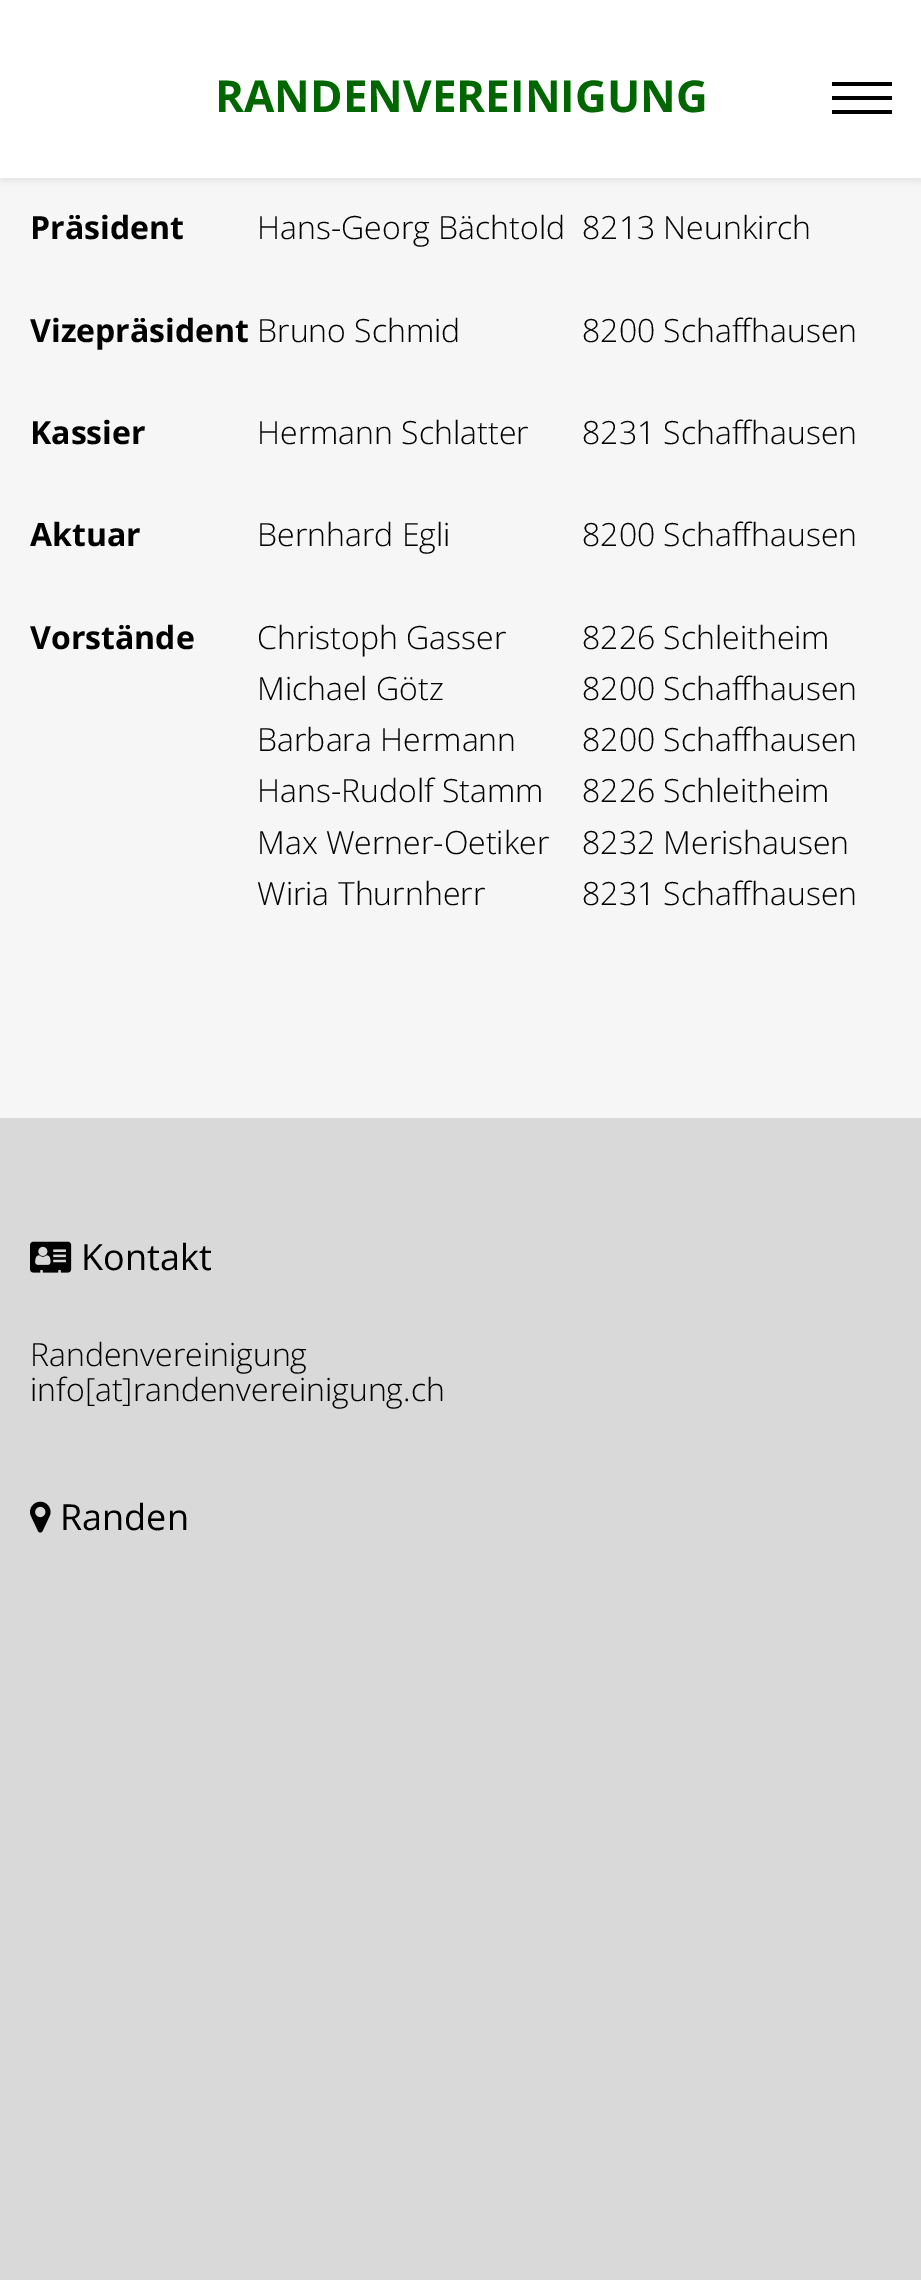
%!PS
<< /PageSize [921 2280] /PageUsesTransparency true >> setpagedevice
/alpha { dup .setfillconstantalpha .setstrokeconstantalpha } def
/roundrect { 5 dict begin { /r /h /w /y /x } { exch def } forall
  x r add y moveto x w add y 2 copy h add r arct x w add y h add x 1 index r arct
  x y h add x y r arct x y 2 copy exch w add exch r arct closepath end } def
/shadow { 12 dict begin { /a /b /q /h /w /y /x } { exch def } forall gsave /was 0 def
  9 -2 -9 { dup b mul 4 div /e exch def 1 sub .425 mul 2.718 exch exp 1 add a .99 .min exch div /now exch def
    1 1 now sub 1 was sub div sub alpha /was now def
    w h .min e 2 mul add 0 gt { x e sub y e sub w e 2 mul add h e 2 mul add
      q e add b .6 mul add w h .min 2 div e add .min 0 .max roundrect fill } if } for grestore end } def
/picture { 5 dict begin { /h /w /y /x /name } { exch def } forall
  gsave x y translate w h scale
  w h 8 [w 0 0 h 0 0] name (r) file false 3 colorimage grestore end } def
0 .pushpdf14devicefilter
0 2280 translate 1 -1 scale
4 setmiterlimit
0.965 setgray
0 0 921 2280 rectfill
0 setgray
0 4 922 178 0 2 0.05 shadow
1 setgray
0 0 921 178 rectfill
/OpenSans-Bold [44 0 0 -44 0 0] selectfont
0 0.4 0 setrgbcolor
215 112 moveto (RANDENVEREINIGUNG) show
0 setgray
832 96 60 4 rectfill
832 82 60 4 rectfill
832 110 60 4 rectfill
/OpenSans-Bold [32 0 0 -32 0 0] selectfont
30 239 moveto (Präsident) show
/OpenSans-Light [32 0 0 -32 0 0] selectfont
257 239 moveto (Hans-Georg Bächtold) show
582 239 moveto (8213 Neunkirch) show
/OpenSans-Bold [32 0 0 -32 0 0] selectfont
30 342 moveto (Vizepräsident) show
/OpenSans-Light [32 0 0 -32 0 0] selectfont
257 342 moveto (Bruno Schmid) show
582 342 moveto (8200 Schaffhausen) show
/OpenSans-Bold [32 0 0 -32 0 0] selectfont
30 444 moveto (Kassier) show
/OpenSans-Light [32 0 0 -32 0 0] selectfont
257 444 moveto (Hermann Schlatter) show
582 444 moveto (8231 Schaffhausen) show
/OpenSans-Bold [32 0 0 -32 0 0] selectfont
30 546 moveto (Aktuar) show
/OpenSans-Light [32 0 0 -32 0 0] selectfont
257 546 moveto (Bernhard Egli) show
582 546 moveto (8200 Schaffhausen) show
/OpenSans-Bold [32 0 0 -32 0 0] selectfont
30 649 moveto (Vorstände) show
/OpenSans-Light [32 0 0 -32 0 0] selectfont
257 649 moveto (Christoph Gasser) show
582 649 moveto (8226 Schleitheim) show
257 700 moveto (Michael Götz) show
582 700 moveto (8200 Schaffhausen) show
257 751 moveto (Barbara Hermann) show
582 751 moveto (8200 Schaffhausen) show
257 802 moveto (Hans-Rudolf Stamm) show
582 802 moveto (8226 Schleitheim) show
257 854 moveto (Max Werner-Oetiker) show
582 854 moveto (8232 Merishausen) show
257 905 moveto (Wiria Thurnherr) show
582 905 moveto (8231 Schaffhausen) show
0.851 setgray
0 1118 921 1162 rectfill
(img1.rgb) 30 1241 42 32 picture
/OpenSans-Regular [36 0 0 -36 0 0] selectfont
0 setgray
81 1270 moveto (Kontakt) show
/OpenSans-Light [32 0 0 -32 0 0] selectfont
30 1366 moveto (Randenvereinigung) show
30 1401 moveto (info[at]randenvereinigung.ch) show
(img2.rgb) 30 1501 21 32 picture
/OpenSans-Regular [36 0 0 -36 0 0] selectfont
60 1530 moveto (Randen) show
.poppdf14devicefilter showpage
